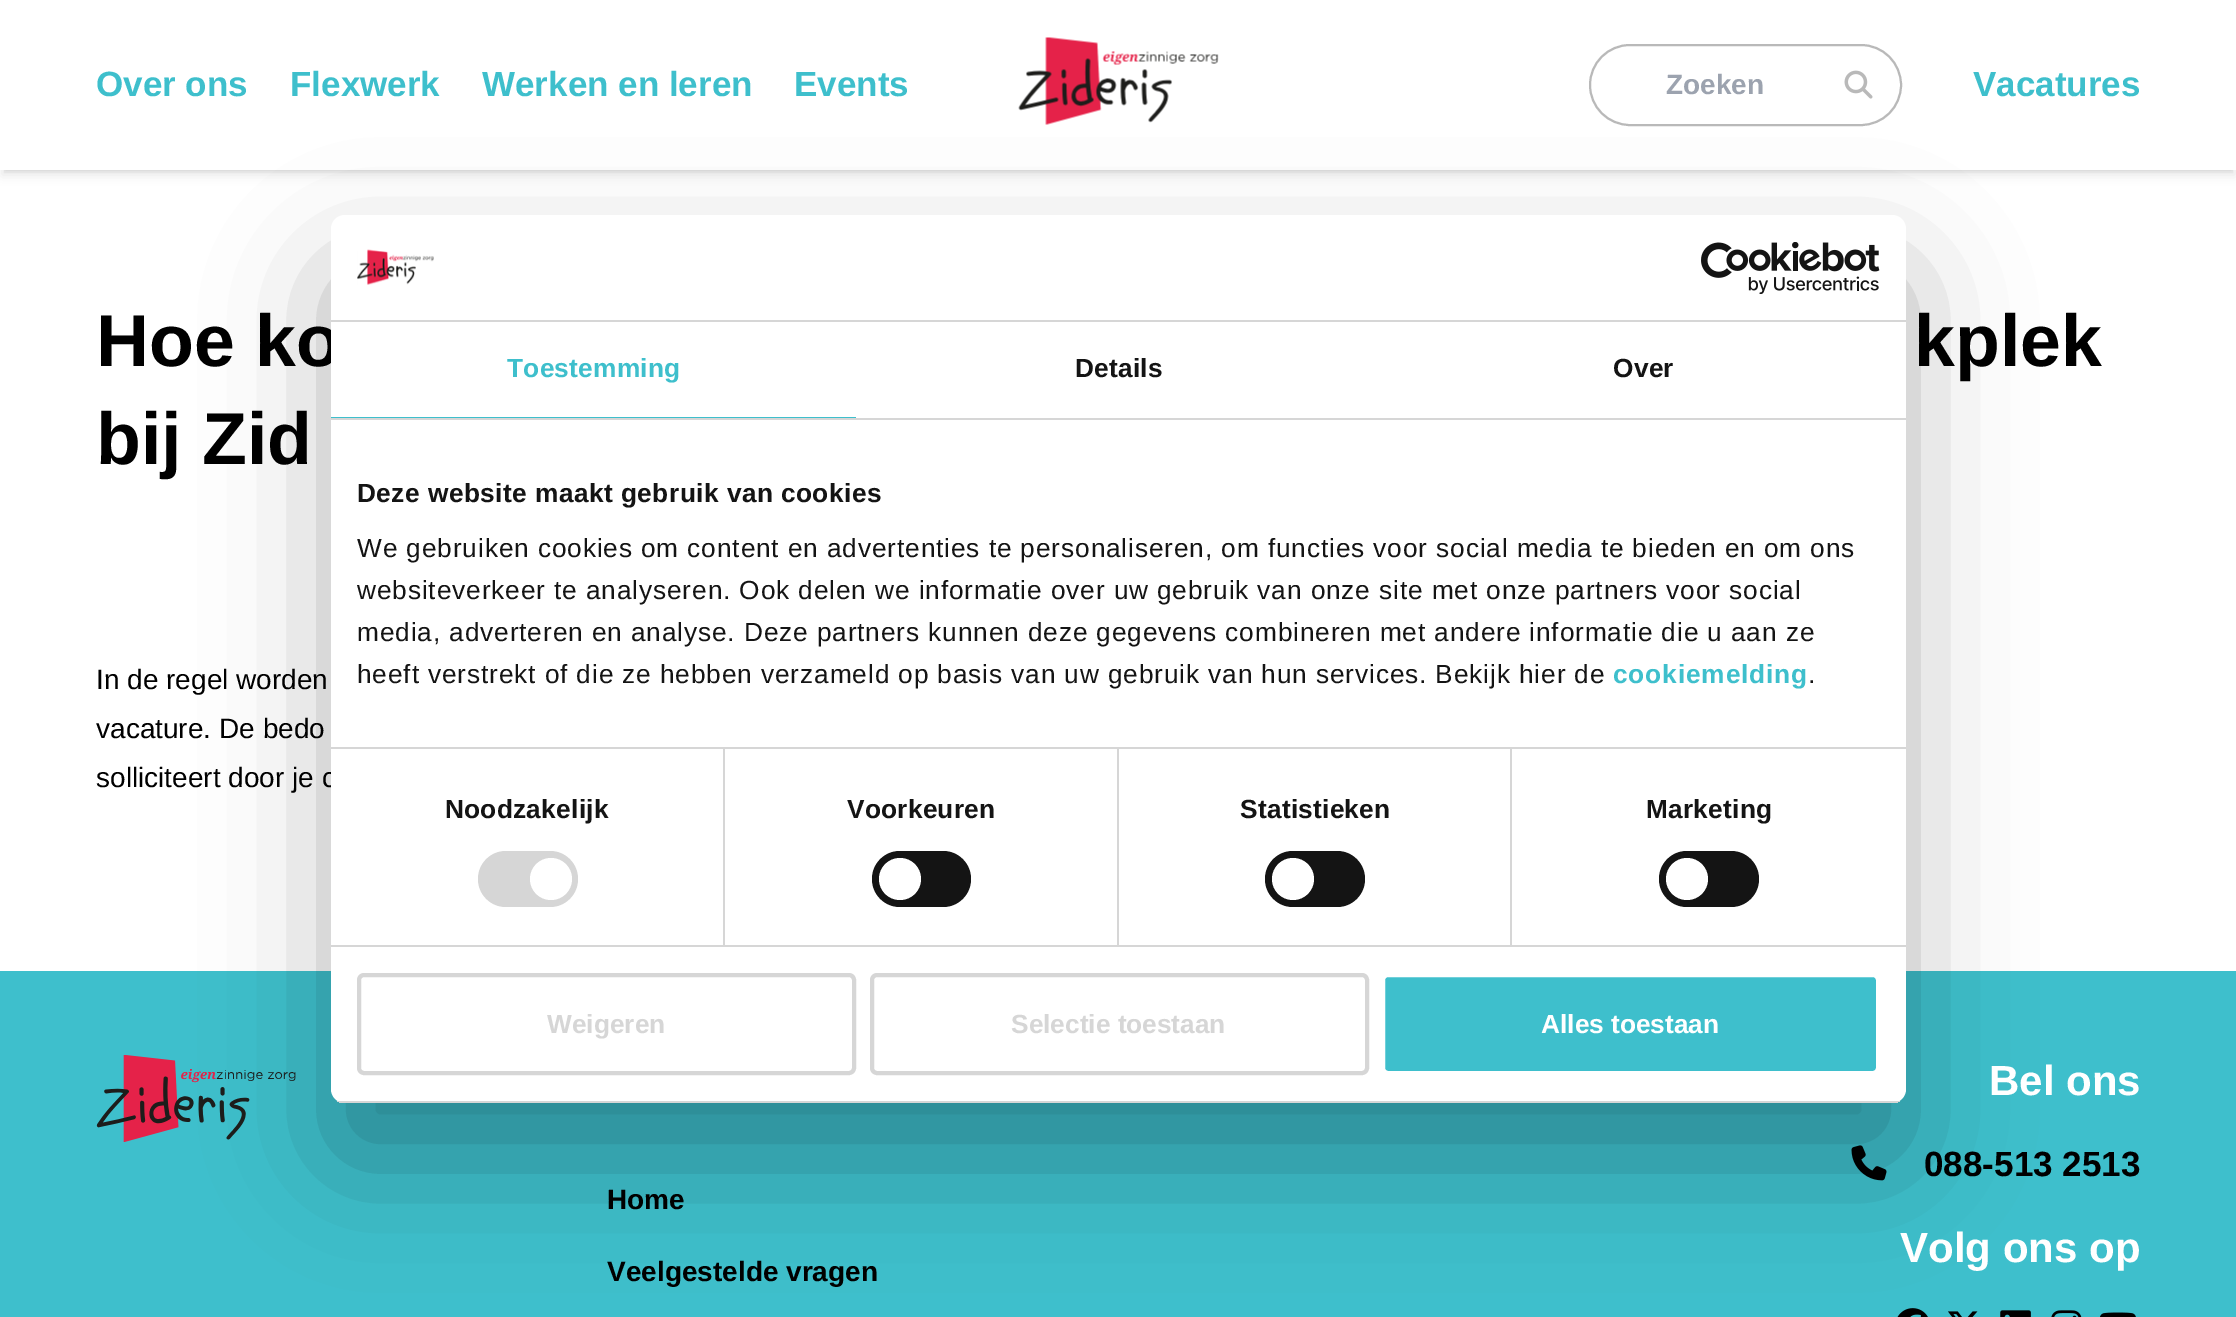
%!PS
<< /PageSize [2236 1317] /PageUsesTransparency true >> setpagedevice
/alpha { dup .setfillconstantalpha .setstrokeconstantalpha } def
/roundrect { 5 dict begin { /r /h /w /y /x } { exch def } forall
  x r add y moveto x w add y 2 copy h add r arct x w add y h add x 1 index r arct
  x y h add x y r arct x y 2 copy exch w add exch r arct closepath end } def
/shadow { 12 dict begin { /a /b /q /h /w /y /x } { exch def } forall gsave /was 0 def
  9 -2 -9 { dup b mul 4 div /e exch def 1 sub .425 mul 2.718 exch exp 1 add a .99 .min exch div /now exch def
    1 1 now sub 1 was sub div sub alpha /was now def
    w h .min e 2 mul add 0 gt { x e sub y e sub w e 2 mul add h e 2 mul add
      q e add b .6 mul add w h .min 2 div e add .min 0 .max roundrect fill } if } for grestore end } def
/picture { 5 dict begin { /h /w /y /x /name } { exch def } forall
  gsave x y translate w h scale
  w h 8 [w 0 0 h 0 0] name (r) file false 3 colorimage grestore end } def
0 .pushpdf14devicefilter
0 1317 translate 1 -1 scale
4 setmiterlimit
1 setgray
0 0 2236 1317 rectfill
gsave
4 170 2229 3 rectclip
0 setgray
4 7 2229 163 0 3.5 0.1 shadow
grestore
gsave
newpath 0 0 moveto 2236 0 lineto 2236 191 lineto 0 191 lineto closepath 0 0 moveto 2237 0 lineto 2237 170 lineto 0 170 lineto closepath eoclip newpath
0 setgray
2 9 2233 166 0 5 0.1 shadow
grestore
(img1.rgb) 1018 37 201 88 picture
/LiberationSans-Bold [35 0 0 -35 0 0] selectfont
0.243 0.749 0.8 setrgbcolor
96 96 moveto (Over ons) show
290 96 moveto (Flexwerk) show
482 96 moveto (Werken en leren) show
794 96 moveto (Events) show
0.725 setgray
2 setlinewidth
1590 45 311 80 40 roundrect stroke
/LiberationSans-Bold [28 0 0 -28 0 0] selectfont
0.612 0.639 0.686 setrgbcolor
1666 94 moveto (Zoeken) show
(img2.rgb) 1844 70 29 29 picture
/LiberationSans-Bold [35 0 0 -35 0 0] selectfont
0.243 0.749 0.8 setrgbcolor
1973 96 moveto (Vacatures) show
/LiberationSans-Bold [73.5 0 0 -73.5 0 0] selectfont
0 setgray
96 366 moveto (Hoe ko) show
1914 366 moveto (kplek) show
96 464 moveto (bij Zid) show
/LiberationSans-Regular [28 0 0 -28 0 0] selectfont
96 689 moveto (In de regel worden) show
96 738 moveto (vacature. De bedo) show
96 787 moveto (solliciteert door je c) show
0.243 0.749 0.8 setrgbcolor
0 971 2236 346 rectfill
(img5.rgb) 96 1055 200 87 picture
(img6.rgb) 1851 1145 36 36 picture
(img7.rgb) 1897 1308 31 9 picture
(img8.rgb) 1948 1311 30 6 picture
(img9.rgb) 2000 1310 31 7 picture
(img10.rgb) 2051 1310 31 7 picture
0 setgray
331 271 1575 888 14 59.5 0.3 shadow
1 setgray
331 215 1575 888 14 roundrect fill
0.839 setgray
331 320 1575 2 rectfill
(img3.rgb) 357 249 77 36 picture
(img4.rgb) 1701 242 179 52 picture
331 418 1575 2 rectfill
0.243 0.749 0.8 setrgbcolor
331 417 525 1 rectfill
/LiberationSans-Bold [26.25 0 0 -26.25 0 0] selectfont
507 377 moveto 0.25 0 (Toestemming) ashow
0.078 setgray
1075 377 moveto 0.25 0 (Details) ashow
1613 377 moveto 0.25 0 (Over) ashow
0.839 setgray
331 747 1575 2 rectfill
0.078 setgray
357 502 moveto 0.45 0 (Deze website maakt gebruik van cookies) ashow
/LiberationSans-Regular [26.25 0 0 -26.25 0 0] selectfont
357 557 moveto 0.88 0 (We gebruiken cookies om content en advertenties te personaliseren, om functies voor social media te bieden en om ons) ashow
357 599 moveto 0.88 0 (websiteverkeer te analyseren. Ook delen we informatie over uw gebruik van onze site met onze partners voor social) ashow
357 641 moveto 0.88 0 (media, adverteren en analyse. Deze partners kunnen deze gegevens combineren met andere informatie die u aan ze) ashow
357 683 moveto 0.88 0 (heeft verstrekt of die ze hebben verzameld op basis van uw gebruik van hun services. Bekijk hier de) ashow
/LiberationSans-Bold [26.25 0 0 -26.25 0 0] selectfont
0.243 0.749 0.8 setrgbcolor
1613 683 moveto 0.88 0 (cookiemelding) ashow
/LiberationSans-Regular [26.25 0 0 -26.25 0 0] selectfont
0.078 setgray
1808 683 moveto 0.88 0 (.) ashow
0.839 setgray
331 945 1575 2 rectfill
723 749 2 196 rectfill
/LiberationSans-Bold [26.25 0 0 -26.25 0 0] selectfont
0.078 setgray
445 818 moveto 0.25 0 (Noodzakelijk) ashow
0.839 setgray
478 851 100 56 28 roundrect fill
1 setgray
newpath 551 879 21 0 360 arc closepath fill
0.839 setgray
1117 749 2 196 rectfill
0.078 setgray
847 818 moveto 0.25 0 (Voorkeuren) ashow
872 851 99 56 28 roundrect fill
1 setgray
newpath 900 879 21 0 360 arc closepath fill
0.839 setgray
1510 749 2 196 rectfill
0.078 setgray
1240 818 moveto 0.25 0 (Statistieken) ashow
1265 851 100 56 28 roundrect fill
1 setgray
newpath 1293 879 21 0 360 arc closepath fill
0.078 setgray
1646 818 moveto 0.25 0 (Marketing) ashow
1659 851 100 56 28 roundrect fill
1 setgray
newpath 1687 879 21 0 360 arc closepath fill
gsave
331 215 1575 888 14 roundrect clip newpath
0.839 setgray
331 1101 1575 2 rectfill
grestore
0.839 setgray
4 setlinewidth
359 975 495 98 5 roundrect stroke
547 1033 moveto (Weigeren) show
872 975 495 98 5 roundrect stroke
1011 1033 moveto (Selectie toestaan) show
0.243 0.749 0.8 setrgbcolor
1383 975 495 98 5 roundrect gsave fill grestore
1 setgray
stroke
1541 1033 moveto (Alles toestaan) show
/LiberationSans-Bold [28 0 0 -28 0 0] selectfont
0 setgray
607 1209 moveto (Home) show
607 1281 moveto (Veelgestelde vragen) show
/LiberationSans-Bold [42 0 0 -42 0 0] selectfont
1 setgray
1989 1095 moveto (Bel ons) show
/LiberationSans-Bold [35 0 0 -35 0 0] selectfont
0 setgray
1924 1176 moveto (088-513 2513) show
/LiberationSans-Bold [42 0 0 -42 0 0] selectfont
1 setgray
1900 1262 moveto (Volg ons op) show
(img11.rgb) 2100 1312 36 5 picture
.poppdf14devicefilter showpage
